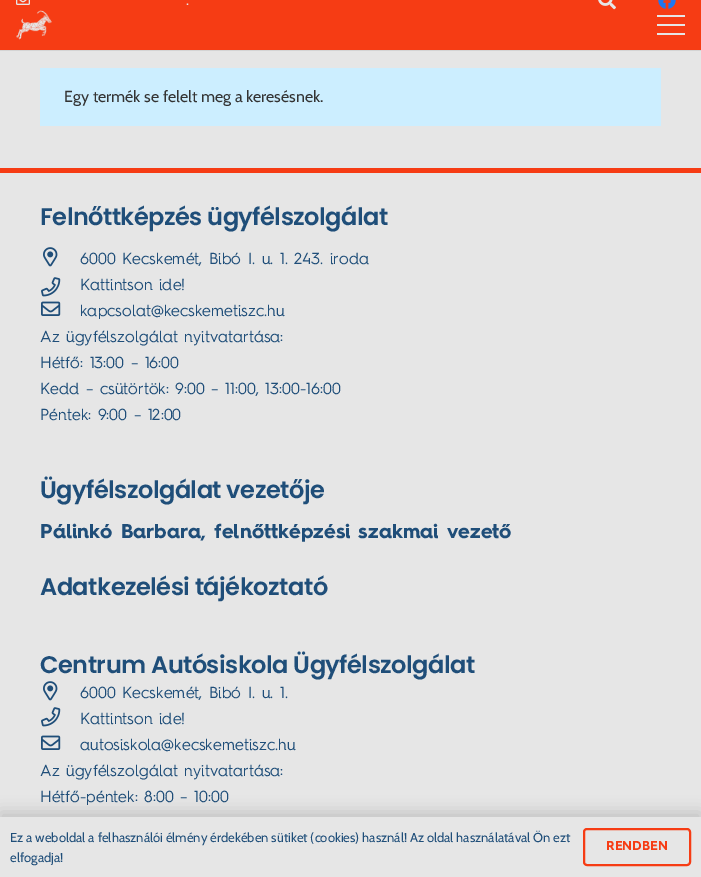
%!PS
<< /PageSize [701 877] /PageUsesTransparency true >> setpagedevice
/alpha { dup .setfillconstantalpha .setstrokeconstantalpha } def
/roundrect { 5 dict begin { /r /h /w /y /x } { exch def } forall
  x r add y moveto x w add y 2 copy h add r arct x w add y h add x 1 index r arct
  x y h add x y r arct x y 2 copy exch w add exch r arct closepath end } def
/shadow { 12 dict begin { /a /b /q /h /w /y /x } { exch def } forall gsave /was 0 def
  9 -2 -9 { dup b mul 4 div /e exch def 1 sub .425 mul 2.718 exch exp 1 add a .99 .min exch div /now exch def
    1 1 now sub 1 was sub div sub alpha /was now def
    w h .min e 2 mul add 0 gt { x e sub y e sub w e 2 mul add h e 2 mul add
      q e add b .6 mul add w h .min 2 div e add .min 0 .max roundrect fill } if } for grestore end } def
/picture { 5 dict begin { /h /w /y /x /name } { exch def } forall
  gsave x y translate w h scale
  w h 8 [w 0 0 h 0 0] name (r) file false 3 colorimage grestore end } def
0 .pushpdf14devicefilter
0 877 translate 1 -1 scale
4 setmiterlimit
0.902 setgray
0 0 701 877 rectfill
0.08 alpha
0 setgray
0 50 701 1 rectfill
1 alpha
0.965 0.235 0.078 setrgbcolor
0 0 701 50 rectfill
(img1.rgb) 16 10 36 30 picture
0.902 setgray
657 24 28 2 rectfill
657 15 28 2 rectfill
657 33 28 2 rectfill
(img2.rgb) 16 0 14 5 picture
/Cabin-Regular [14 0 0 -14 0 0] selectfont
186 5 moveto (.) show
(img3.rgb) 598 0 18 10 picture
(img4.rgb) 658 0 18 9 picture
0.8 0.933 1 setrgbcolor
40 68 621 58 rectfill
/Cabin-Regular [16 0 0 -16 0 0] selectfont
0.2 setgray
64 102 moveto (Egy termék se felelt meg a keresésnek.) show
0.965 0.235 0.078 setrgbcolor
0 168 701 5 rectfill
/Poppins-SemiBold [24 0 0 -24 0 0] selectfont
0.122 0.306 0.475 setrgbcolor
40 225 moveto -0.5 0 (Felnőttképzés ügyfélszolgálat) ashow
(img5.rgb) 43 247 15 20 picture
/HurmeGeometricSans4-Regular [16 0 0 -16 0 0] selectfont
80 264 moveto (6000 Kecskemét, Bibó I. u. 1. 243. iroda) show
(img6.rgb) 41 277 20 20 picture
80 290 moveto (Kattintson ide!) show
(img7.rgb) 41 301 20 15 picture
80 316 moveto (kapcsolat@kecskemetiszc.hu) show
40 342 moveto (Az ügyfélszolgálat nyitvatartása:) show
40 368 moveto (Hétfő: 13:00 – 16:00) show
40 394 moveto (Kedd – csütörtök: 9:00 – 11:00, 13:00-16:00) show
40 420 moveto (Péntek: 9:00 – 12:00) show
/Poppins-SemiBold [24 0 0 -24 0 0] selectfont
40 498 moveto -0.5 0 (Ügyfélszolgálat vezetője) ashow
/HurmeGeometricSans4-Bold [20 0 0 -20 0 0] selectfont
40 538 moveto (Pálinkó Barbara, felnőttképzési szakmai vezető) show
/Poppins-SemiBold [24 0 0 -24 0 0] selectfont
40 595 moveto -0.5 0 (Adatkezelési tájékoztató) ashow
40 673 moveto -0.5 0 (Centrum Autósiskola Ügyfélszolgálat) ashow
(img5.rgb) 43 681 15 20 picture
/HurmeGeometricSans4-Regular [16 0 0 -16 0 0] selectfont
80 698 moveto (6000 Kecskemét, Bibó I. u. 1.) show
(img6.rgb) 41 707 20 20 picture
80 724 moveto (Kattintson ide!) show
(img7.rgb) 41 735 20 15 picture
80 750 moveto (autosiskola@kecskemetiszc.hu) show
40 776 moveto (Az ügyfélszolgálat nyitvatartása:) show
40 802 moveto (Hétfő-péntek: 8:00 – 10:00) show
0 setgray
0 812 701 60 0 7.5 0.15 shadow
0.902 setgray
0 817 701 60 rectfill
/Cabin-Regular [13 0 0 -13 0 0] selectfont
0.122 0.306 0.475 setrgbcolor
10 842 moveto (Ez a weboldal a felhasználói élmény érdekében sütiket \(cookies\) használ! Az oldal használatával Ön ezt) show
10 862 moveto (elfogadja!) show
0.965 0.235 0.078 setrgbcolor
2 setlinewidth
584 829 106 36 3 roundrect stroke
/HurmeGeometricSans4-Bold [13 0 0 -13 0 0] selectfont
606 850 moveto (RENDBEN) show
.poppdf14devicefilter showpage
